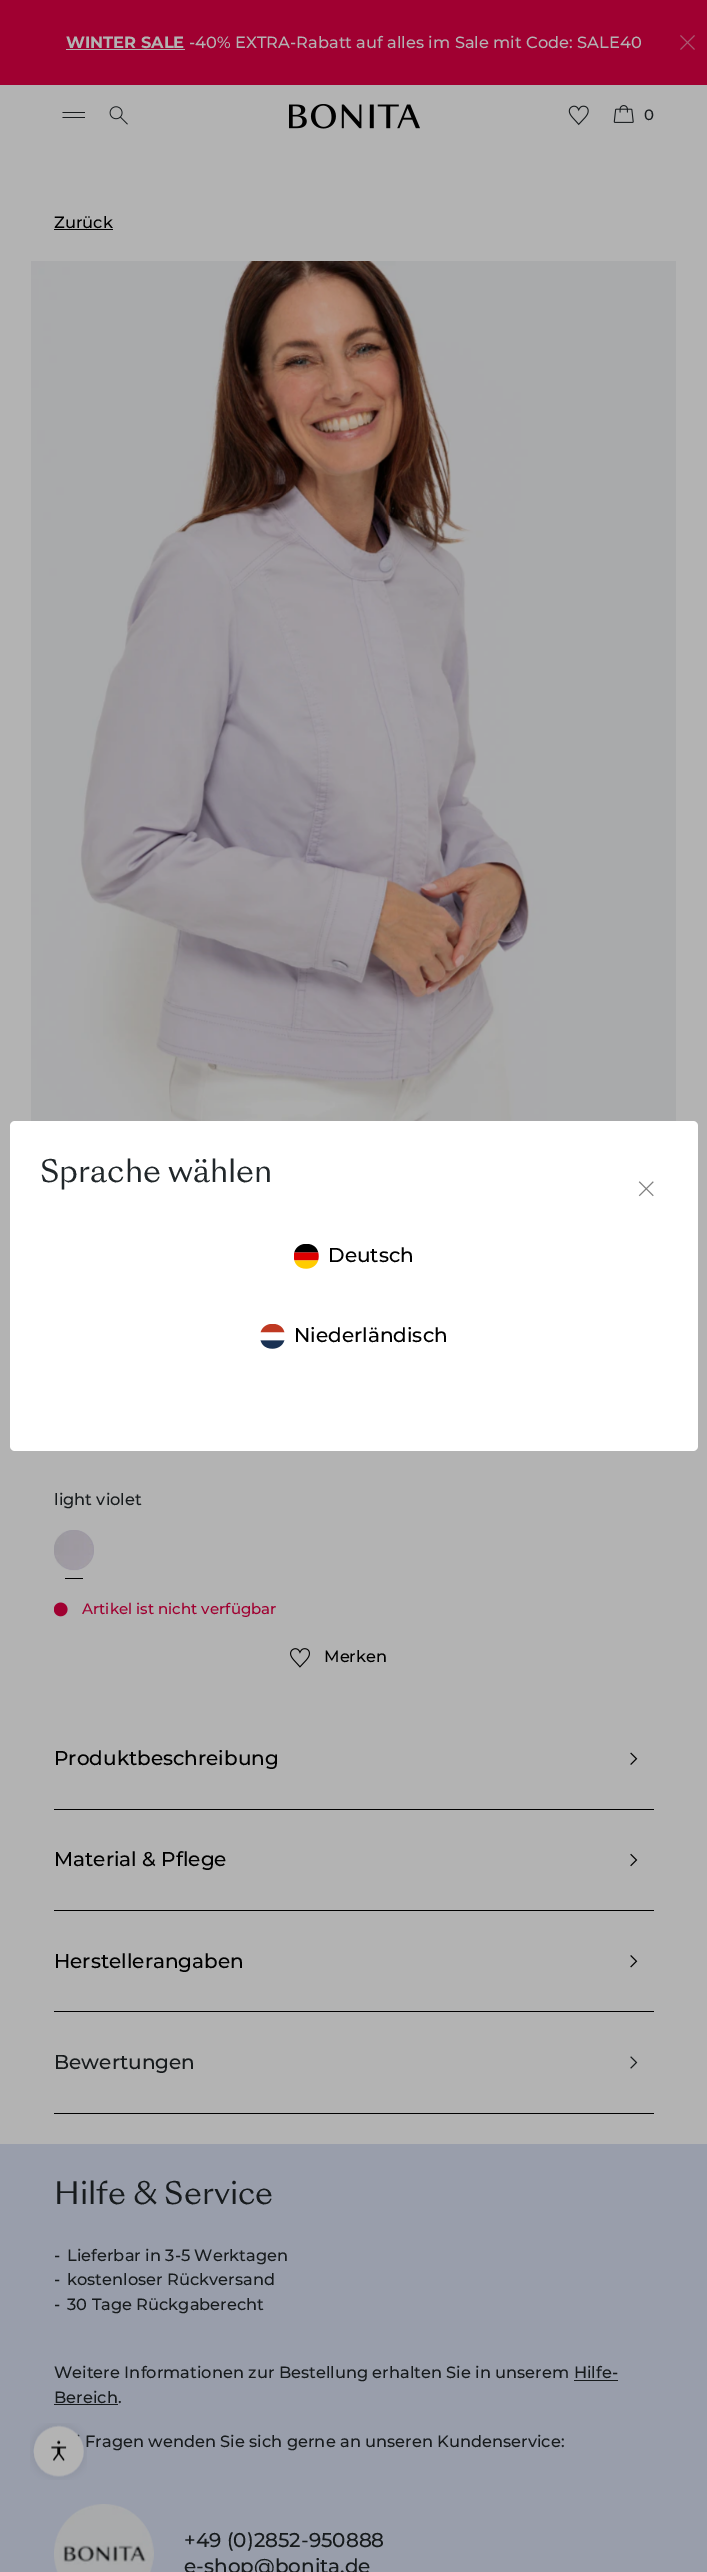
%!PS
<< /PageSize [707 2572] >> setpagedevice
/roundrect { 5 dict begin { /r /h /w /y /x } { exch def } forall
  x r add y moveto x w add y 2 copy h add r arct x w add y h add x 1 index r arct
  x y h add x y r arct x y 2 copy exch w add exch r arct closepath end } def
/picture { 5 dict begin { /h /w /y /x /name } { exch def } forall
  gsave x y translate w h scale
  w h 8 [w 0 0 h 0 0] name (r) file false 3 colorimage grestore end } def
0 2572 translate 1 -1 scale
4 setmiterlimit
0.702 setgray
0 0 707 2572 rectfill
0.627 0 0.192 setrgbcolor
0 0 707 85 rectfill
/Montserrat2-Thin [16.25 0 0 -16.25 0 0] selectfont
0.702 setgray
66 48 moveto (WINTER SALE) show
66 49 119 1 rectfill
/Montserrat-Thin [16.25 0 0 -16.25 0 0] selectfont
189 48 moveto (-40% EXTRA-Rabatt auf alles im Sale mit Code: SALE40) show
(img1.rgb) 680 35 15 15 picture
0.09 0.106 0.114 setrgbcolor
newpath 62.5 112 moveto 85 112 lineto 85 113 lineto 62.5 113 lineto closepath 62.5 117 moveto 85 117 lineto 85 118 lineto 62.5 118 lineto closepath fill
(img2.rgb) 109 106 19 19 picture
(img3.rgb) 289 104 131 25 picture
(img4.rgb) 568 105 21 21 picture
(img5.rgb) 613 105 21 18 picture
/Montserrat-Thin [15 0 0 -15 0 0] selectfont
644 120 moveto (0) show
/Montserrat-Thin [16.25 0 0 -16.25 0 0] selectfont
0 setgray
54 228 moveto (Zurück) show
54 229 59 1 rectfill
(img6.rgb) 31 261 645 860 picture
0.09 0.106 0.114 setrgbcolor
54 1505 moveto (light violet) show
0.596 0.58 0.643 setrgbcolor
newpath 74 1550 20 0 360 arc closepath fill
(img7.rgb) 54 1530 40 41 picture
0 setgray
65 1578 18 1 rectfill
(img8.rgb) 54 1602 14 15 picture
/Montserrat-Thin [15 0 0 -15 0 0] selectfont
0.627 0 0.192 setrgbcolor
82 1614 moveto (Artikel ist nicht verfügbar) show
(img9.rgb) 290 1648 20 20 picture
/Montserrat-Thin [16.25 0 0 -16.25 0 0] selectfont
0 setgray
324 1662 moveto (Merken) show
54 1809 600 1 rectfill
/Montserrat-Thin [20 0 0 -20 0 0] selectfont
54 1765 moveto (Produktbeschreibung) show
(img10.rgb) 630 1752 8 13 picture
54 1910 600 1 rectfill
54 1866 moveto (Material & Pflege) show
(img11.rgb) 630 1853 8 14 picture
54 2011 600 1 rectfill
54 1968 moveto (Herstellerangaben) show
(img12.rgb) 630 1955 8 13 picture
54 2113 600 1 rectfill
0.09 0.106 0.114 setrgbcolor
54 2069 moveto (Bewertungen) show
(img13.rgb) 630 2056 8 13 picture
0.6 0.62 0.671 setrgbcolor
0 2144 707 428 rectfill
/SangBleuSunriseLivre-Regular [30 0 0 -30 0 0] selectfont
0.09 0.106 0.114 setrgbcolor
54 2204 moveto (Hilfe & Service) show
/Montserrat-Thin [16.25 0 0 -16.25 0 0] selectfont
54 2261 moveto (-) show
67 2261 moveto (Lieferbar in 3-5 Werktagen) show
54 2285 moveto (-) show
67 2285 moveto (kostenloser Rückversand) show
54 2310 moveto (-) show
67 2310 moveto (30 Tage Rückgaberecht) show
54 2378 moveto (Weitere Informationen zur Bestellung erhalten Sie in unserem Hilfe-) show
54 2403 moveto (Bereich.) show
574 2380 44 1 rectfill
54 2404 64 1 rectfill
85 2447 moveto (Fragen wenden Sie sich gerne an unseren Kundenservice:) show
(img14.rgb) 54 2504 100 68 picture
/Montserrat-Thin [20 0 0 -20 0 0] selectfont
184 2547 moveto (+49 \(0\)2852-950888) show
184 2573 moveto (e-shop@bonita.de) show
1 setgray
10 1121 688 330 5 roundrect fill
/SangBleuSunriseLivre-Regular [30 0 0 -30 0 0] selectfont
0.129 0.153 0.165 setrgbcolor
40 1182 moveto (Sprache wählen) show
(img15.rgb) 638 1181 16 16 picture
(img16.rgb) 294 1244 25 25 picture
/Montserrat-Thin [20 0 0 -20 0 0] selectfont
0 setgray
328 1262 moveto (Deutsch) show
(img17.rgb) 260 1324 25 25 picture
294 1342 moveto (Niederländisch) show
(img18.rgb) 30 2423 57 57 picture
showpage
